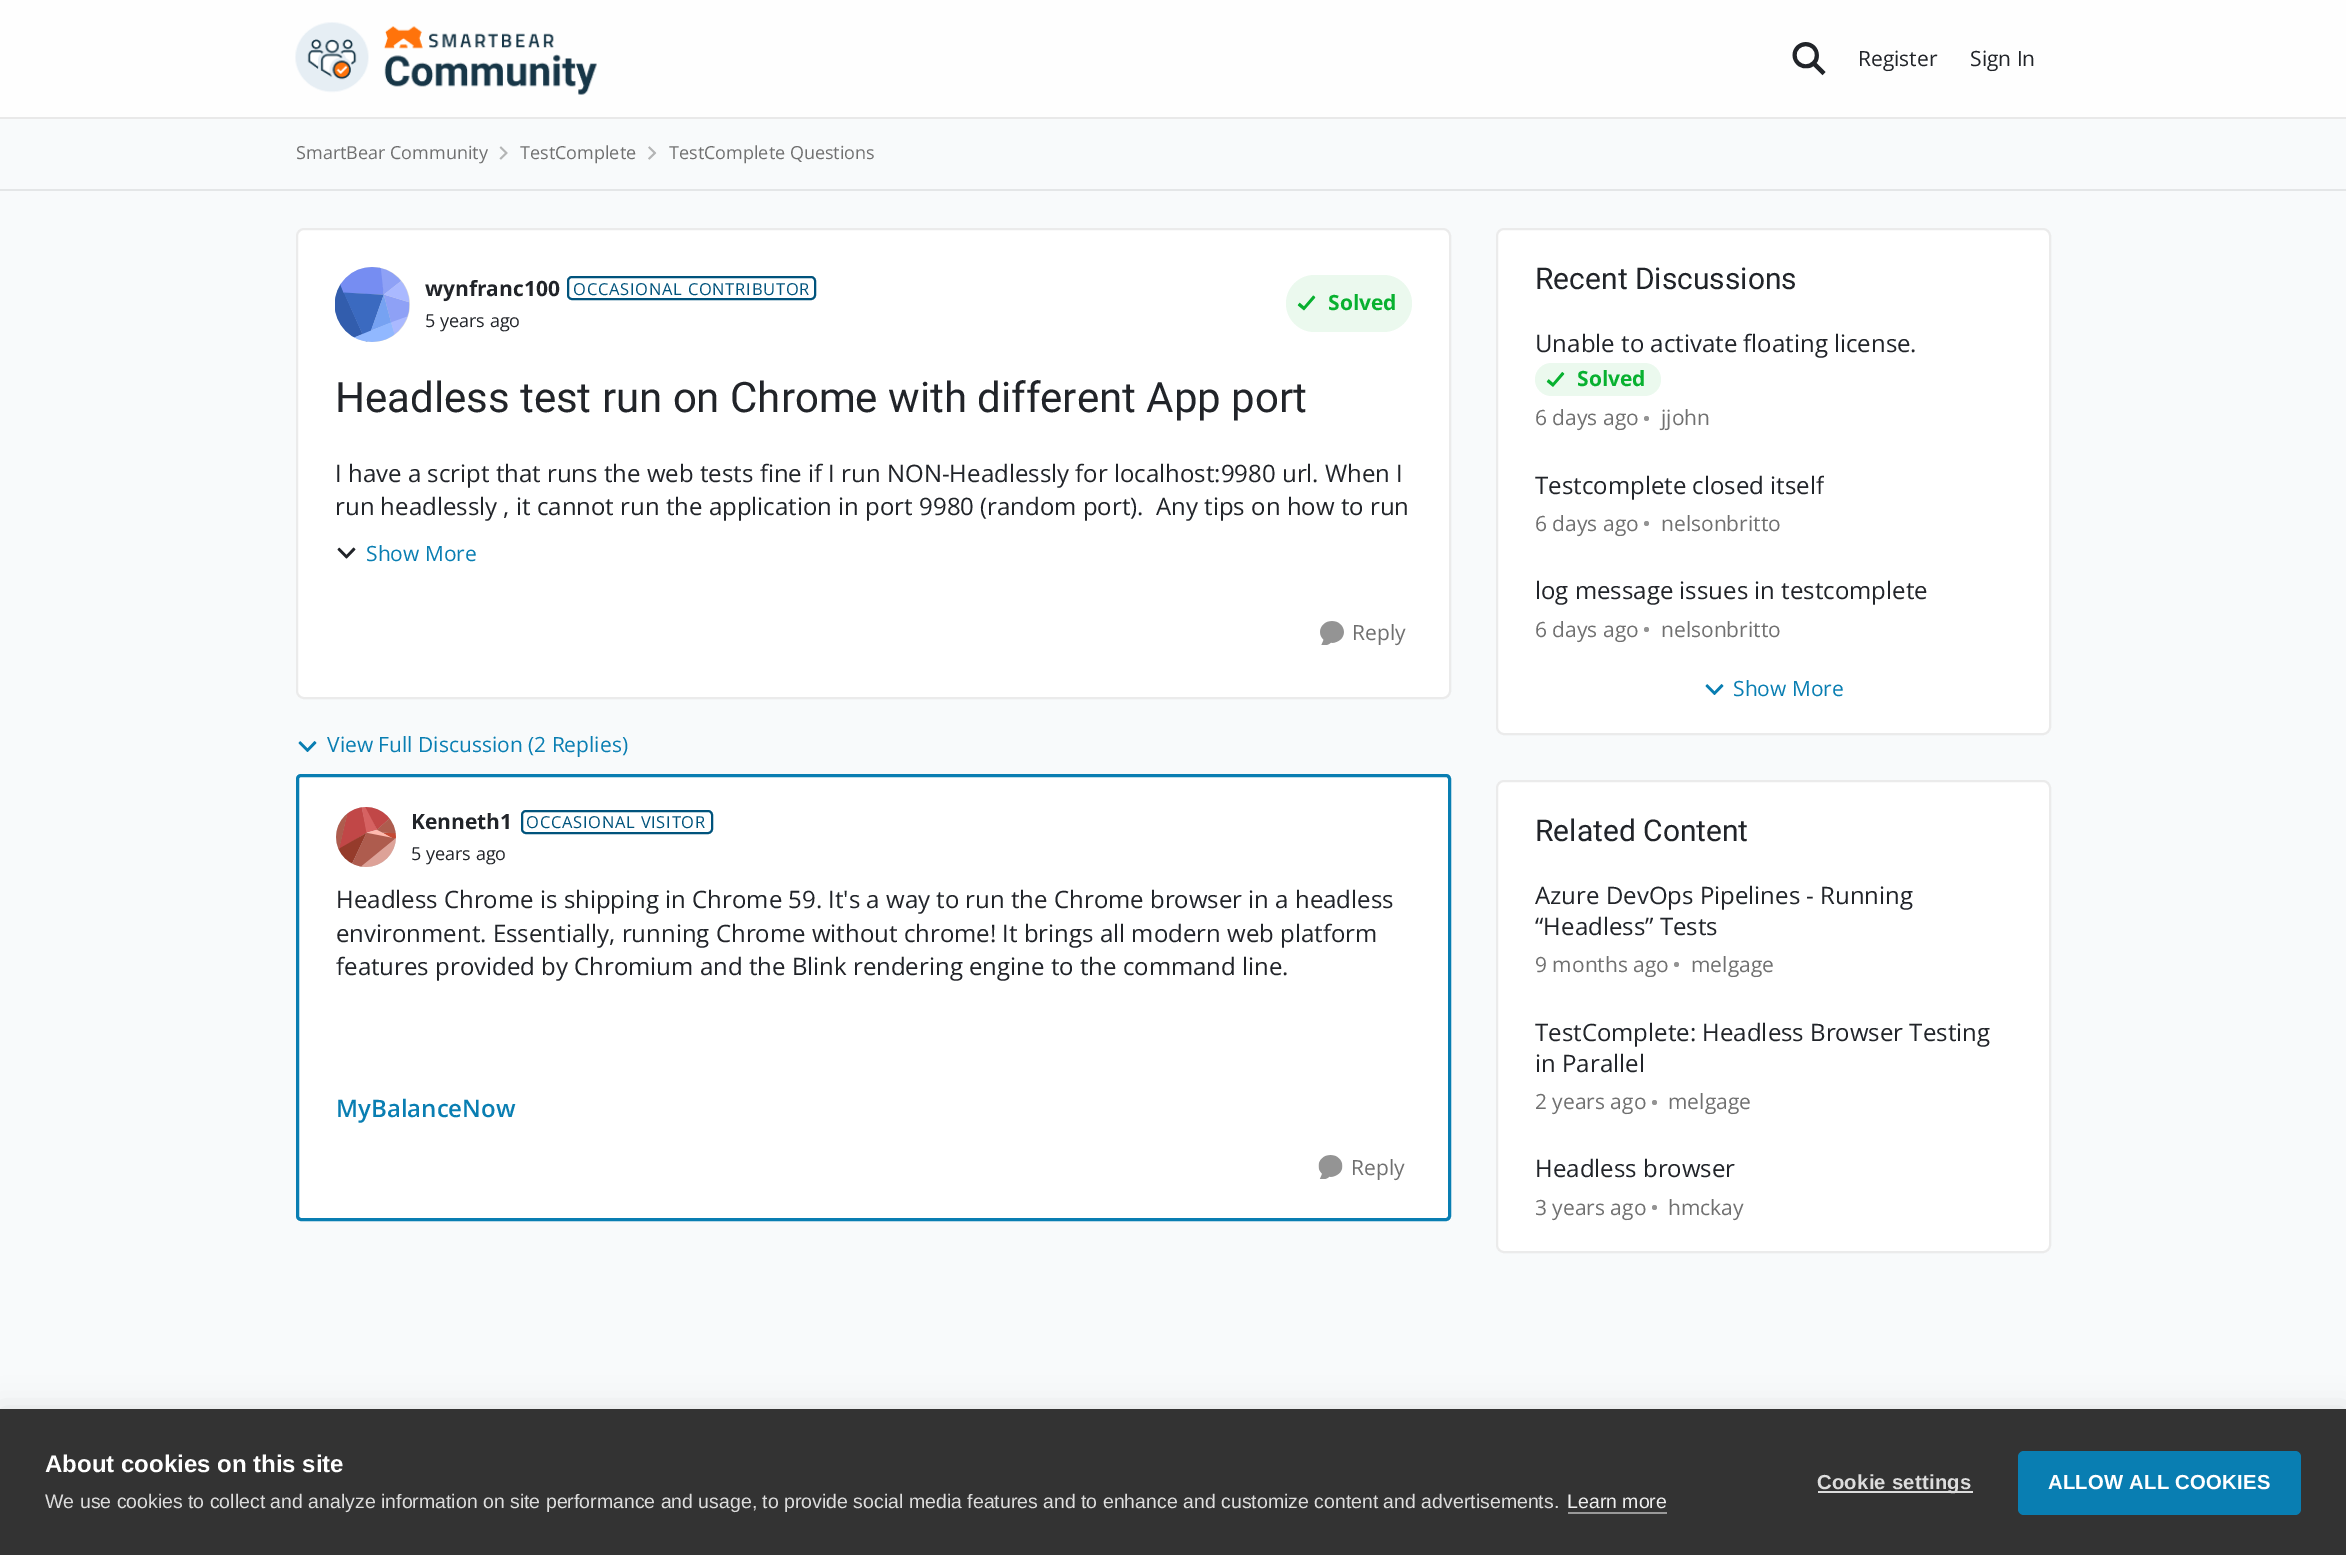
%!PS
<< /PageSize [2346 1555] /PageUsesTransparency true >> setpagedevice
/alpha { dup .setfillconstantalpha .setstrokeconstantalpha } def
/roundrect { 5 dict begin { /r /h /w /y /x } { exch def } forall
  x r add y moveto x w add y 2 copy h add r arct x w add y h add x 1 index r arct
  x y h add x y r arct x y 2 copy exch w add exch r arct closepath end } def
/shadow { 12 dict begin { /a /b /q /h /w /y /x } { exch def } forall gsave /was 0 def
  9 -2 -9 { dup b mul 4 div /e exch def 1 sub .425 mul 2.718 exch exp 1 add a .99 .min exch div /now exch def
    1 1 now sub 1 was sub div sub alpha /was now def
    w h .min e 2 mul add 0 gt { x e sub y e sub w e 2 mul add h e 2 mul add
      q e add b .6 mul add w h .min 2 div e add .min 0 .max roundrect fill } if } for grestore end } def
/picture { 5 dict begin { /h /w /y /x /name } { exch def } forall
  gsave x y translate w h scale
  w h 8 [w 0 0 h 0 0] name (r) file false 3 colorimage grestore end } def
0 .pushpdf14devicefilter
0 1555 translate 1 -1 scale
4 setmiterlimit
0.973 0.98 0.984 setrgbcolor
0 0 2346 1555 rectfill
0.8 alpha
1 setgray
0 0 2346 117 rectfill
1 alpha
0.914 setgray
0 117 2346 2 rectfill
(img1.rgb) 295 22 302 73 picture
(img2.rgb) 1792 42 34 34 picture
/OpenSans-Regular [21 0 0 -21 0 0] selectfont
0.129 0.141 0.161 setrgbcolor
1858 66 moveto (Register) show
1970 66 moveto (Sign In) show
0.894 0.902 0.906 setrgbcolor
0 189 2346 2 rectfill
/OpenSans-Regular [18 0 0 -18 0 0] selectfont
0.439 setgray
296 159 moveto (SmartBear Community) show
(img3.rgb) 499 146 9 14 picture
520 159 moveto (TestComplete) show
(img4.rgb) 648 146 9 14 picture
669 159 moveto (TestComplete Questions) show
1 setgray
296 228 1155 471 8 roundrect fill
0.08 alpha
0 setgray
2 setlinewidth
297 229 1153 469 7 roundrect stroke
1 alpha
0.851 setgray
newpath 372.5 304.5 37.5 0 360 arc closepath fill
(img5.rgb) 335 267 75 75 picture
/OpenSans-Bold [21 0 0 -21 0 0] selectfont
0.129 0.141 0.161 setrgbcolor
425 296 moveto (wynfranc100) show
0 0.325 0.486 setrgbcolor
568 277 247 22 4 roundrect stroke
/OpenSans-Regular [16.5 0 0 -16.5 0 0] selectfont
573 295 moveto 0.75 0 (OCCASIONAL CONTRIBUTOR) ashow
/OpenSans-Regular [18 0 0 -18 0 0] selectfont
0.129 0.141 0.161 setrgbcolor
425 327 moveto (5 years ago) show
0.922 0.976 0.933 setrgbcolor
1286 275 126 57 28.5 roundrect fill
(img6.rgb) 1297 295 19 16 picture
/OpenSans-Bold [21 0 0 -21 0 0] selectfont
0.031 0.694 0.188 setrgbcolor
1328 310 moveto (Solved) show
/Roboto-Regular [42 0 0 -42 0 0] selectfont
0.129 0.141 0.161 setrgbcolor
335 412 moveto (Headless test run on Chrome with different App port) show
/OpenSans-Regular [24 0 0 -24 0 0] selectfont
335 482 moveto (I have a script that runs the web tests fine if I run NON-Headlessly for localhost:9980 url. When I) show
335 515 moveto (run headlessly , it cannot run the application in port 9980 \(random port\).  Any tips on how to run) show
(img7.rgb) 337 547 19 12 picture
/OpenSans-Regular [21 0 0 -21 0 0] selectfont
0.035 0.494 0.698 setrgbcolor
366 561 moveto (Show More) show
(img8.rgb) 1320 621 24 24 picture
0.439 setgray
1352 640 moveto (Reply) show
(img9.rgb) 298 741 19 11 picture
0.035 0.494 0.698 setrgbcolor
327 752 moveto (View Full Discussion \(2 Replies\)) show
1 setgray
297.5 775.5 1152 444 3.5 roundrect gsave fill grestore
0.035 0.494 0.698 setrgbcolor
3 setlinewidth
stroke
0.851 setgray
newpath 366 837 30 0 360 arc closepath fill
(img10.rgb) 336 807 60 60 picture
/OpenSans-Bold [21 0 0 -21 0 0] selectfont
0.129 0.141 0.161 setrgbcolor
411 829 moveto (Kenneth1) show
0 0.325 0.486 setrgbcolor
2 setlinewidth
522 811 190 22 4 roundrect stroke
gsave
527 813 180 18 rectclip
/OpenSans-Regular [16.5 0 0 -16.5 0 0] selectfont
526 828 moveto 0.75 0 (OCCASIONAL VISITOR) ashow
grestore
/OpenSans-Regular [18 0 0 -18 0 0] selectfont
0.129 0.141 0.161 setrgbcolor
411 860 moveto (5 years ago) show
/OpenSans-Regular [24 0 0 -24 0 0] selectfont
336 908 moveto (Headless Chrome is shipping in Chrome 59. It's a way to run the Chrome browser in a headless) show
336 942 moveto (environment. Essentially, running Chrome without chrome! It brings all modern web platform) show
336 975 moveto (features provided by Chromium and the Blink rendering engine to the command line.) show
/OpenSans-SemiBold [24 0 0 -24 0 0] selectfont
0.035 0.494 0.698 setrgbcolor
336 1117 moveto (MyBalanceNow) show
(img11.rgb) 1318 1155 25 24 picture
/OpenSans-Regular [21 0 0 -21 0 0] selectfont
0.439 setgray
1351 1175 moveto (Reply) show
1 setgray
1496 228 555 507 8 roundrect fill
0.08 alpha
0 setgray
1497 229 553 505 7 roundrect stroke
/Roboto-Regular [30 0 0 -30 0 0] selectfont
1 alpha
0.129 0.141 0.161 setrgbcolor
1535 289 moveto (Recent Discussions) show
/OpenSans-Regular [24 0 0 -24 0 0] selectfont
1535 352 moveto (Unable to activate floating license.) show
0.922 0.976 0.933 setrgbcolor
1535 363 126 33 16.5 roundrect fill
(img12.rgb) 1546 372 19 15 picture
/OpenSans-Bold [21 0 0 -21 0 0] selectfont
0.031 0.694 0.188 setrgbcolor
1577 386 moveto (Solved) show
/OpenSans-Regular [21 0 0 -21 0 0] selectfont
0.439 setgray
1535 425 moveto (6 days ago) show
0.58 setgray
newpath 1646.5 418.5 2.5 0 360 arc closepath fill
0.439 setgray
1661 425 moveto (jjohn) show
gsave
1535 470 289 31 rectclip
/OpenSans-Regular [24 0 0 -24 0 0] selectfont
0.129 0.141 0.161 setrgbcolor
1535 494 moveto (Testcomplete closed itself) show
grestore
1535 531 moveto (6 days ago) show
0.58 setgray
newpath 1646.5 523.5 2.5 0 360 arc closepath fill
0.439 setgray
1661 531 moveto (nelsonbritto) show
/OpenSans-Regular [24 0 0 -24 0 0] selectfont
0.129 0.141 0.161 setrgbcolor
1535 599 moveto (log message issues in testcomplete) show
/OpenSans-Regular [21 0 0 -21 0 0] selectfont
0.439 setgray
1535 637 moveto (6 days ago) show
0.58 setgray
newpath 1646.5 629.5 2.5 0 360 arc closepath fill
0.439 setgray
1661 637 moveto (nelsonbritto) show
(img13.rgb) 1705 684 19 11 picture
0.035 0.494 0.698 setrgbcolor
1733 696 moveto (Show More) show
1 setgray
1496 780 555 473 8 roundrect fill
0.08 alpha
0 setgray
1497 781 553 471 7 roundrect stroke
/Roboto-Regular [30 0 0 -30 0 0] selectfont
1 alpha
0.129 0.141 0.161 setrgbcolor
1535 841 moveto (Related Content) show
/OpenSans-Regular [24 0 0 -24 0 0] selectfont
1535 904 moveto (Azure DevOps Pipelines - Running) show
1535 935 moveto (“Headless” Tests) show
/OpenSans-Regular [21 0 0 -21 0 0] selectfont
0.439 setgray
1535 972 moveto (9 months ago) show
0.58 setgray
newpath 1676.5 964.5 2.5 0 360 arc closepath fill
0.439 setgray
1691 972 moveto (melgage) show
/OpenSans-Regular [24 0 0 -24 0 0] selectfont
0.129 0.141 0.161 setrgbcolor
1535 1041 moveto (TestComplete: Headless Browser Testing) show
1535 1072 moveto (in Parallel) show
/OpenSans-Regular [21 0 0 -21 0 0] selectfont
0.439 setgray
1535 1109 moveto (2 years ago) show
0.58 setgray
newpath 1654.5 1102.5 2.5 0 360 arc closepath fill
0.439 setgray
1668 1109 moveto (melgage) show
/OpenSans-Regular [24 0 0 -24 0 0] selectfont
0.129 0.141 0.161 setrgbcolor
1535 1177 moveto (Headless browser) show
/OpenSans-Regular [21 0 0 -21 0 0] selectfont
0.439 setgray
1535 1215 moveto (3 years ago) show
0.58 setgray
newpath 1654.5 1207.5 2.5 0 360 arc closepath fill
0.439 setgray
1668 1215 moveto (hmckay) show
0 setgray
0 1409 2346 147 0 15 0.1 shadow
0.2 setgray
0 1409 2346 146 rectfill
/LiberationSans-Bold [24 0 0 -24 0 0] selectfont
1 setgray
45 1472 moveto (About cookies on this site) show
/LiberationSans-Regular [19.5 0 0 -19.5 0 0] selectfont
0.867 setgray
45 1508 moveto (We use cookies to collect and analyze information on site performance and usage, to provide social media features and to enhance and customize content and advertisements.) show
0.933 setgray
1567 1508 moveto (Learn more) show
0.6 setgray
1568 1512 99 2 rectfill
0.867 setgray
1818 1491 155 2 rectfill
/LiberationSans-Bold [20.25 0 0 -20.25 0 0] selectfont
1817 1489 moveto 0.25 0 (Cookie settings) ashow
0.035 0.494 0.698 setrgbcolor
2018 1451 283 64 6 roundrect fill
1 setgray
2048 1489 moveto 0.25 0 (ALLOW ALL COOKIES) ashow
.poppdf14devicefilter showpage
